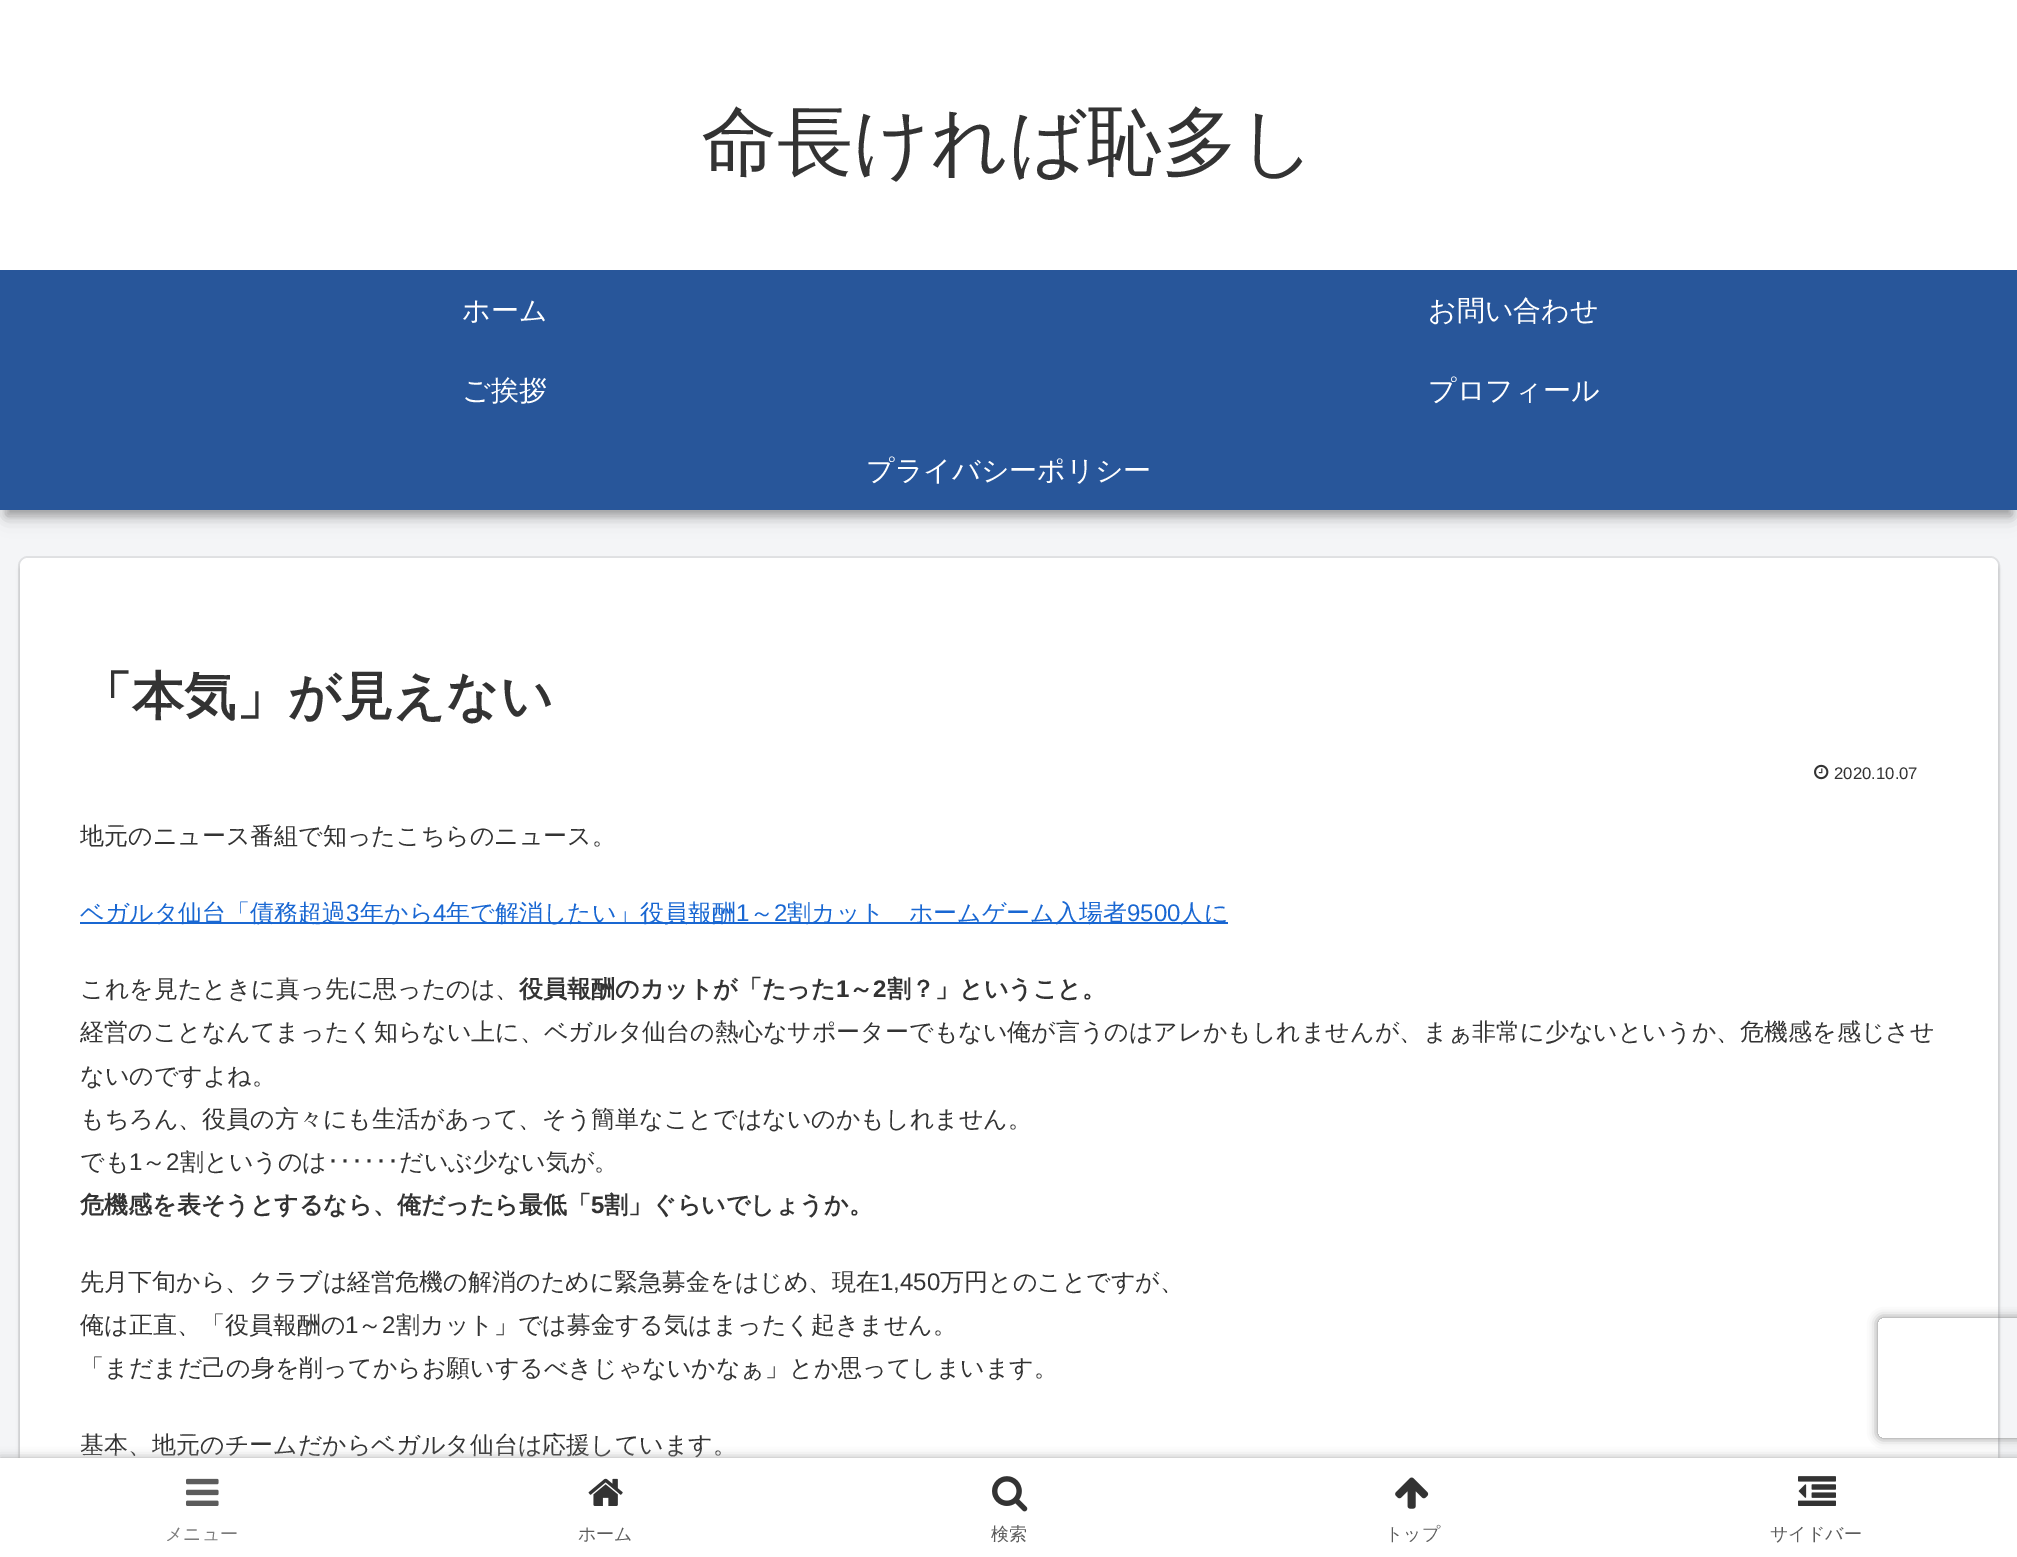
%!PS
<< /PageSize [2017 1557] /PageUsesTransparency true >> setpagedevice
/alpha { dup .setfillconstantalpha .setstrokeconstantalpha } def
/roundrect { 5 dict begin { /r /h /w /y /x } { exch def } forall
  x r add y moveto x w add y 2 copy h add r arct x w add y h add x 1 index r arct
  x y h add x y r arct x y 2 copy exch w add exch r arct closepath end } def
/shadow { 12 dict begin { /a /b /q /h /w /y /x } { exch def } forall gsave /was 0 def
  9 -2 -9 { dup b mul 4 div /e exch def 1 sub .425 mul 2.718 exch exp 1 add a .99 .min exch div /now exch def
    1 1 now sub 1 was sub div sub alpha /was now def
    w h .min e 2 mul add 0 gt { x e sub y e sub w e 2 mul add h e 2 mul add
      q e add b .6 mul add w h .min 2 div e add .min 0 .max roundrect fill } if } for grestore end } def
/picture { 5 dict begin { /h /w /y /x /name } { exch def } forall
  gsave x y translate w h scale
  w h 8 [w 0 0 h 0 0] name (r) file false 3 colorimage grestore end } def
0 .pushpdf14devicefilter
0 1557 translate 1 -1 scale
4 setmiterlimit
0.957 0.961 0.969 setrgbcolor
0 0 2017 1557 rectfill
0 setgray
6 18 2006 498 0 10 0.18 shadow
6 18 2006 498 0 5 0.24 shadow
1 setgray
0 0 2017 270 rectfill
/WenQuanYiZenHei-Medium [76 0 0 -76 0 0] selectfont
0.2 setgray
701 168 moveto (命長ければ恥多し) show
0.157 0.337 0.604 setrgbcolor
0 270 2017 240 rectfill
/WenQuanYiZenHei-Medium [28 0 0 -28 0 0] selectfont
1 setgray
462 320 moveto (ホーム) show
1428 320 moveto (お問い合わせ) show
462 400 moveto (ご挨拶) show
1428 400 moveto (プロフィール) show
866 480 moveto (プライバシーポリシー) show
0.878 0.882 0.89 setrgbcolor
2 setlinewidth
19 557 1980 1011 9 roundrect stroke
0 setgray
20 562 1978 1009 8 2 0.16 shadow
1 setgray
20 558 1978 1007 8 roundrect fill
/WenQuanYiZenHei-Bold [52 0 0 -52 0 0] selectfont
0.2 setgray
80 714 moveto (「本気」が見えない) show
(img1.rgb) 1814 764 15 16 picture
/LiberationSans-Regular [16.75 0 0 -16.75 0 0] selectfont
1834 779 moveto (2020.10.07) show
/WenQuanYiZenHei-Medium [24 0 0 -24 0 0] selectfont
80 844 moveto (地元のニュース番組で知ったこちらのニュース。) show
0.098 0.404 0.824 setrgbcolor
80 922 1148 2 rectfill
80 921 moveto (ベガルタ仙台「債務超過) show
/LiberationSans-Regular [24 0 0 -24 0 0] selectfont
346 921 moveto (3) show
/WenQuanYiZenHei-Medium [24 0 0 -24 0 0] selectfont
360 921 moveto (年から) show
/LiberationSans-Regular [24 0 0 -24 0 0] selectfont
433 921 moveto (4) show
/WenQuanYiZenHei-Medium [24 0 0 -24 0 0] selectfont
446 921 moveto (年で解消したい」役員報酬) show
/LiberationSans-Regular [24 0 0 -24 0 0] selectfont
736 921 moveto (1) show
/WenQuanYiZenHei-Medium [24 0 0 -24 0 0] selectfont
750 921 moveto (～) show
/LiberationSans-Regular [24 0 0 -24 0 0] selectfont
774 921 moveto (2) show
/WenQuanYiZenHei-Medium [24 0 0 -24 0 0] selectfont
787 921 moveto (割カット　ホームゲーム入場者) show
/LiberationSans-Regular [24 0 0 -24 0 0] selectfont
1127 921 moveto (9500) show
/WenQuanYiZenHei-Medium [24 0 0 -24 0 0] selectfont
1180 921 moveto (人に) show
0.2 setgray
80 997 moveto (これを見たときに真っ先に思ったのは、) show
/WenQuanYiZenHei-Bold [24 0 0 -24 0 0] selectfont
519 997 moveto (役員報酬のカットが「たった) show
/LiberationSans-Bold [24 0 0 -24 0 0] selectfont
836 997 moveto (1) show
/WenQuanYiZenHei-Bold [24 0 0 -24 0 0] selectfont
849 997 moveto (～) show
/LiberationSans-Bold [24 0 0 -24 0 0] selectfont
873 997 moveto (2) show
/WenQuanYiZenHei-Bold [24 0 0 -24 0 0] selectfont
887 997 moveto (割？」ということ。) show
/WenQuanYiZenHei-Medium [24 0 0 -24 0 0] selectfont
80 1040 moveto (経営のことなんてまったく知らない上に、ベガルタ仙台の熱心なサポーターでもない俺が言うのはアレかもしれませんが、まぁ非常に少ないというか、危機感を感じさせ) show
80 1084 moveto (ないのですよね。) show
80 1127 moveto (もちろん、役員の方々にも生活があって、そう簡単なことではないのかもしれません。) show
80 1170 moveto (でも) show
/LiberationSans-Regular [24 0 0 -24 0 0] selectfont
129 1170 moveto (1) show
/WenQuanYiZenHei-Medium [24 0 0 -24 0 0] selectfont
142 1170 moveto (～) show
/LiberationSans-Regular [24 0 0 -24 0 0] selectfont
166 1170 moveto (2) show
/WenQuanYiZenHei-Medium [24 0 0 -24 0 0] selectfont
180 1170 moveto (割というのは) show
/IPAPGothic-Regular [24 0 0 -24 0 0] selectfont
327 1170 moveto (･･････) show
/WenQuanYiZenHei-Medium [24 0 0 -24 0 0] selectfont
399 1170 moveto (だいぶ少ない気が。) show
/WenQuanYiZenHei-Bold [24 0 0 -24 0 0] selectfont
80 1213 moveto (危機感を表そうとするなら、俺だったら最低「) show
/LiberationSans-Bold [24 0 0 -24 0 0] selectfont
591 1213 moveto (5) show
/WenQuanYiZenHei-Bold [24 0 0 -24 0 0] selectfont
604 1213 moveto (割」ぐらいでしょうか。) show
/WenQuanYiZenHei-Medium [24 0 0 -24 0 0] selectfont
80 1290 moveto (先月下旬から、クラブは経営危機の解消のために緊急募金をはじめ、現在) show
/LiberationSans-Regular [24 0 0 -24 0 0] selectfont
880 1290 moveto (1,450) show
/WenQuanYiZenHei-Medium [24 0 0 -24 0 0] selectfont
940 1290 moveto (万円とのことですが、) show
80 1333 moveto (俺は正直、「役員報酬の) show
/LiberationSans-Regular [24 0 0 -24 0 0] selectfont
345 1333 moveto (1) show
/WenQuanYiZenHei-Medium [24 0 0 -24 0 0] selectfont
358 1333 moveto (～) show
/LiberationSans-Regular [24 0 0 -24 0 0] selectfont
382 1333 moveto (2) show
/WenQuanYiZenHei-Medium [24 0 0 -24 0 0] selectfont
396 1333 moveto (割カット」では募金する気はまったく起きません。) show
80 1376 moveto (「まだまだ己の身を削ってからお願いするべきじゃないかなぁ」とか思ってしまいます。) show
80 1453 moveto (基本、地元のチームだからベガルタ仙台は応援しています。) show
0.663 setgray
0 1458 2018 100 0 5 1 shadow
1 setgray
0 1458 2017 99 rectfill
(img2.rgb) 186 1478 33 28 picture
/WenQuanYiZenHei-Medium [18 0 0 -18 0 0] selectfont
0.486 setgray
165 1540 moveto (メニュー) show
(img3.rgb) 588 1478 35 28 picture
0.361 setgray
578 1540 moveto (ホーム) show
(img4.rgb) 992 1476 36 36 picture
991 1540 moveto (検索) show
(img5.rgb) 1395 1477 34 32 picture
1385 1540 moveto (トップ) show
(img6.rgb) 1798 1476 38 30 picture
1770 1540 moveto (サイドバー) show
gsave
newpath 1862 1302 moveto 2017 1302 lineto 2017 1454 lineto 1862 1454 lineto closepath 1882 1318 moveto 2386 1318 lineto 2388 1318 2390 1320 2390 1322 curveto 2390 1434 lineto 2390 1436 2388 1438 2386 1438 curveto 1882 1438 lineto 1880 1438 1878 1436 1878 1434 curveto 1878 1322 lineto 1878 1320 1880 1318 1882 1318 curveto closepath eoclip newpath
0.502 setgray
1878 1318 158 120 4 5 1 shadow
grestore
.poppdf14devicefilter showpage
